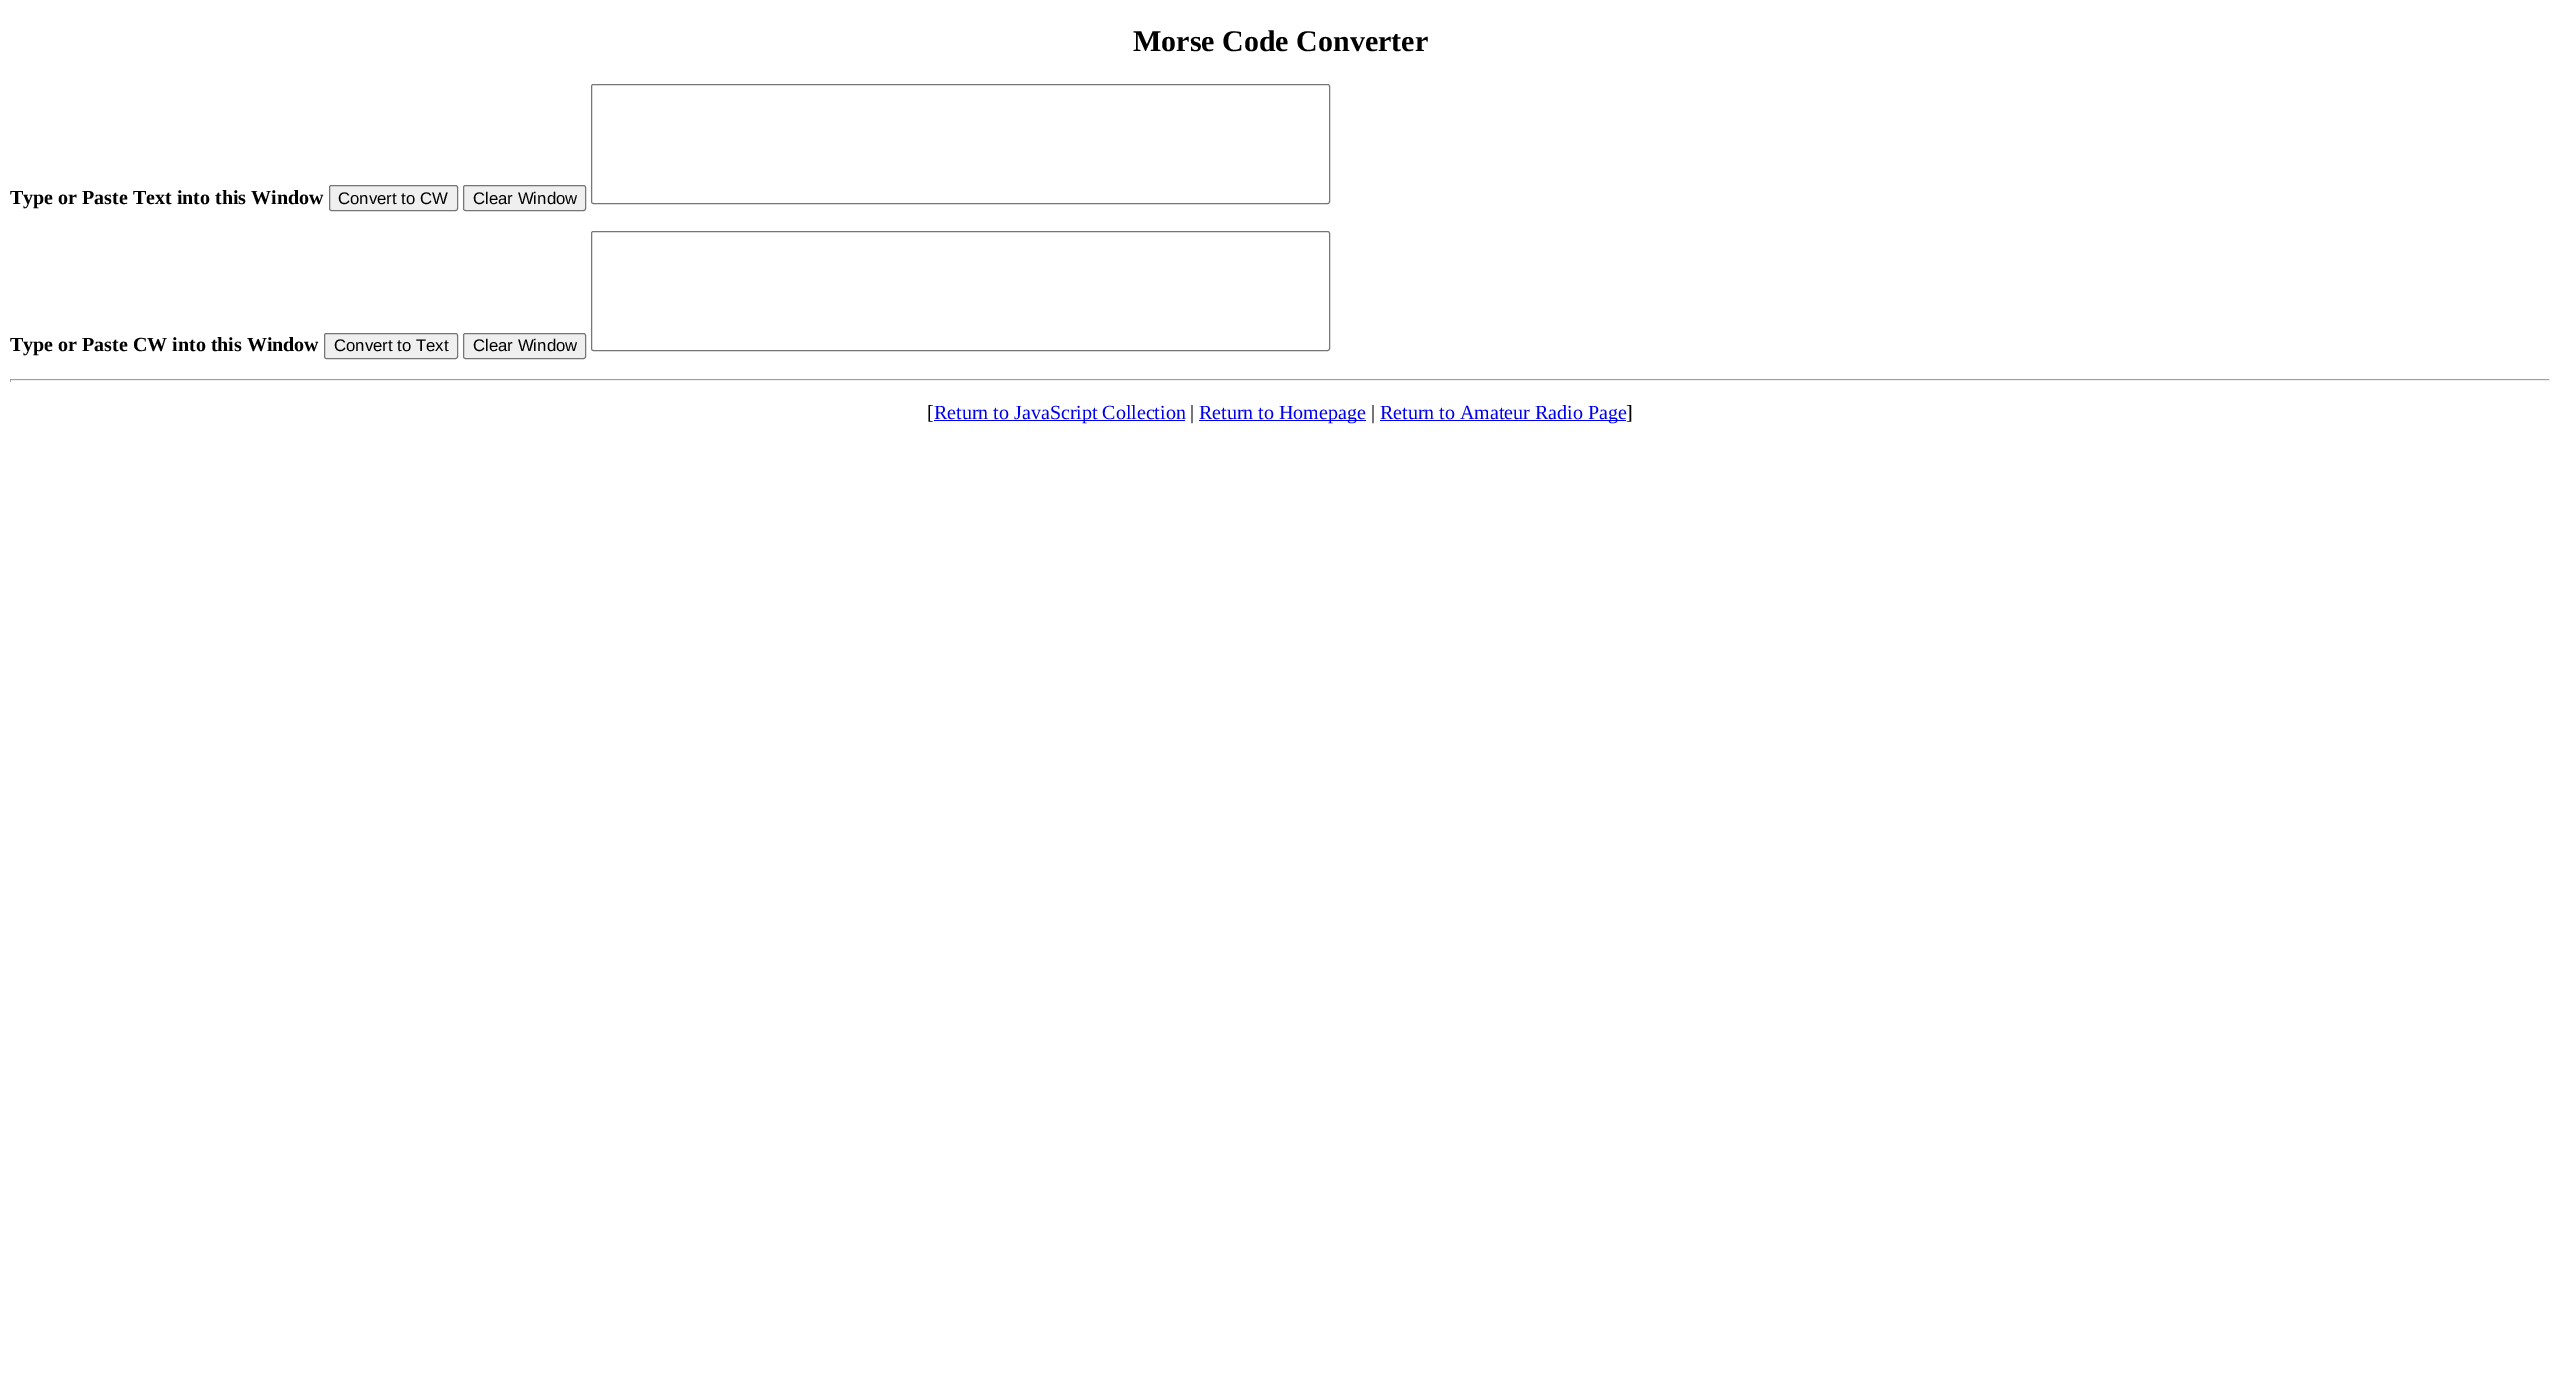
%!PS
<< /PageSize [2559 1376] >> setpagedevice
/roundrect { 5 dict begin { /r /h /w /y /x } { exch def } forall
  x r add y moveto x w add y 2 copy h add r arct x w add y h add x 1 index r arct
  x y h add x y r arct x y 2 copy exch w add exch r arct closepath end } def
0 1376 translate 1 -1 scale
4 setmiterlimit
1 setgray
0 0 2559 1376 rectfill
/LiberationSerif-Bold [30 0 0 -30 0 0] selectfont
0 setgray
1133 51 moveto (Morse Code Converter) show
/LiberationSerif-Bold [20 0 0 -20 0 0] selectfont
10 204 moveto (Type or Paste Text into this Window) show
0.937 setgray
329.5 185.5 128 25 2 roundrect gsave fill grestore
0.463 setgray
stroke
/LiberationSans-Regular [16.75 0 0 -16.75 0 0] selectfont
0 setgray
338 204 moveto (Convert to CW) show
0.937 setgray
463.5 185.5 122 25 2 roundrect gsave fill grestore
0.463 setgray
stroke
0 setgray
473 204 moveto (Clear Window) show
0.463 setgray
591.5 84.5 738 119 2 roundrect stroke
/LiberationSerif-Bold [20 0 0 -20 0 0] selectfont
0 setgray
10 351 moveto (Type or Paste CW into this Window) show
0.937 setgray
324.5 333.5 133 25 2 roundrect gsave fill grestore
0.463 setgray
stroke
/LiberationSans-Regular [16.75 0 0 -16.75 0 0] selectfont
0 setgray
334 351 moveto (Convert to Text) show
0.937 setgray
463.5 333.5 122 25 2 roundrect gsave fill grestore
0.463 setgray
stroke
0 setgray
473 351 moveto (Clear Window) show
0.463 setgray
591.5 231.5 738 119 2 roundrect stroke
0.624 setgray
10 379 2540 1 rectfill
0.933 setgray
2549 379 1 3 rectfill
10 380 2540 1 rectfill
0.624 setgray
10 379 1 3 rectfill
/LiberationSerif-Regular [20 0 0 -20 0 0] selectfont
0 setgray
927 419 moveto ([) show
0 0 0.933 setrgbcolor
934 420 251 1 rectfill
934 419 moveto (Return to JavaScript Collection) show
0 setgray
1190 419 moveto (|) show
0 0 0.933 setrgbcolor
1199 420 167 1 rectfill
1199 419 moveto (Return to Homepage) show
0 setgray
1371 419 moveto (|) show
0 0 0.933 setrgbcolor
1380 420 246 1 rectfill
1380 419 moveto (Return to Amateur Radio Page) show
0 setgray
1626 419 moveto (]) show
showpage
